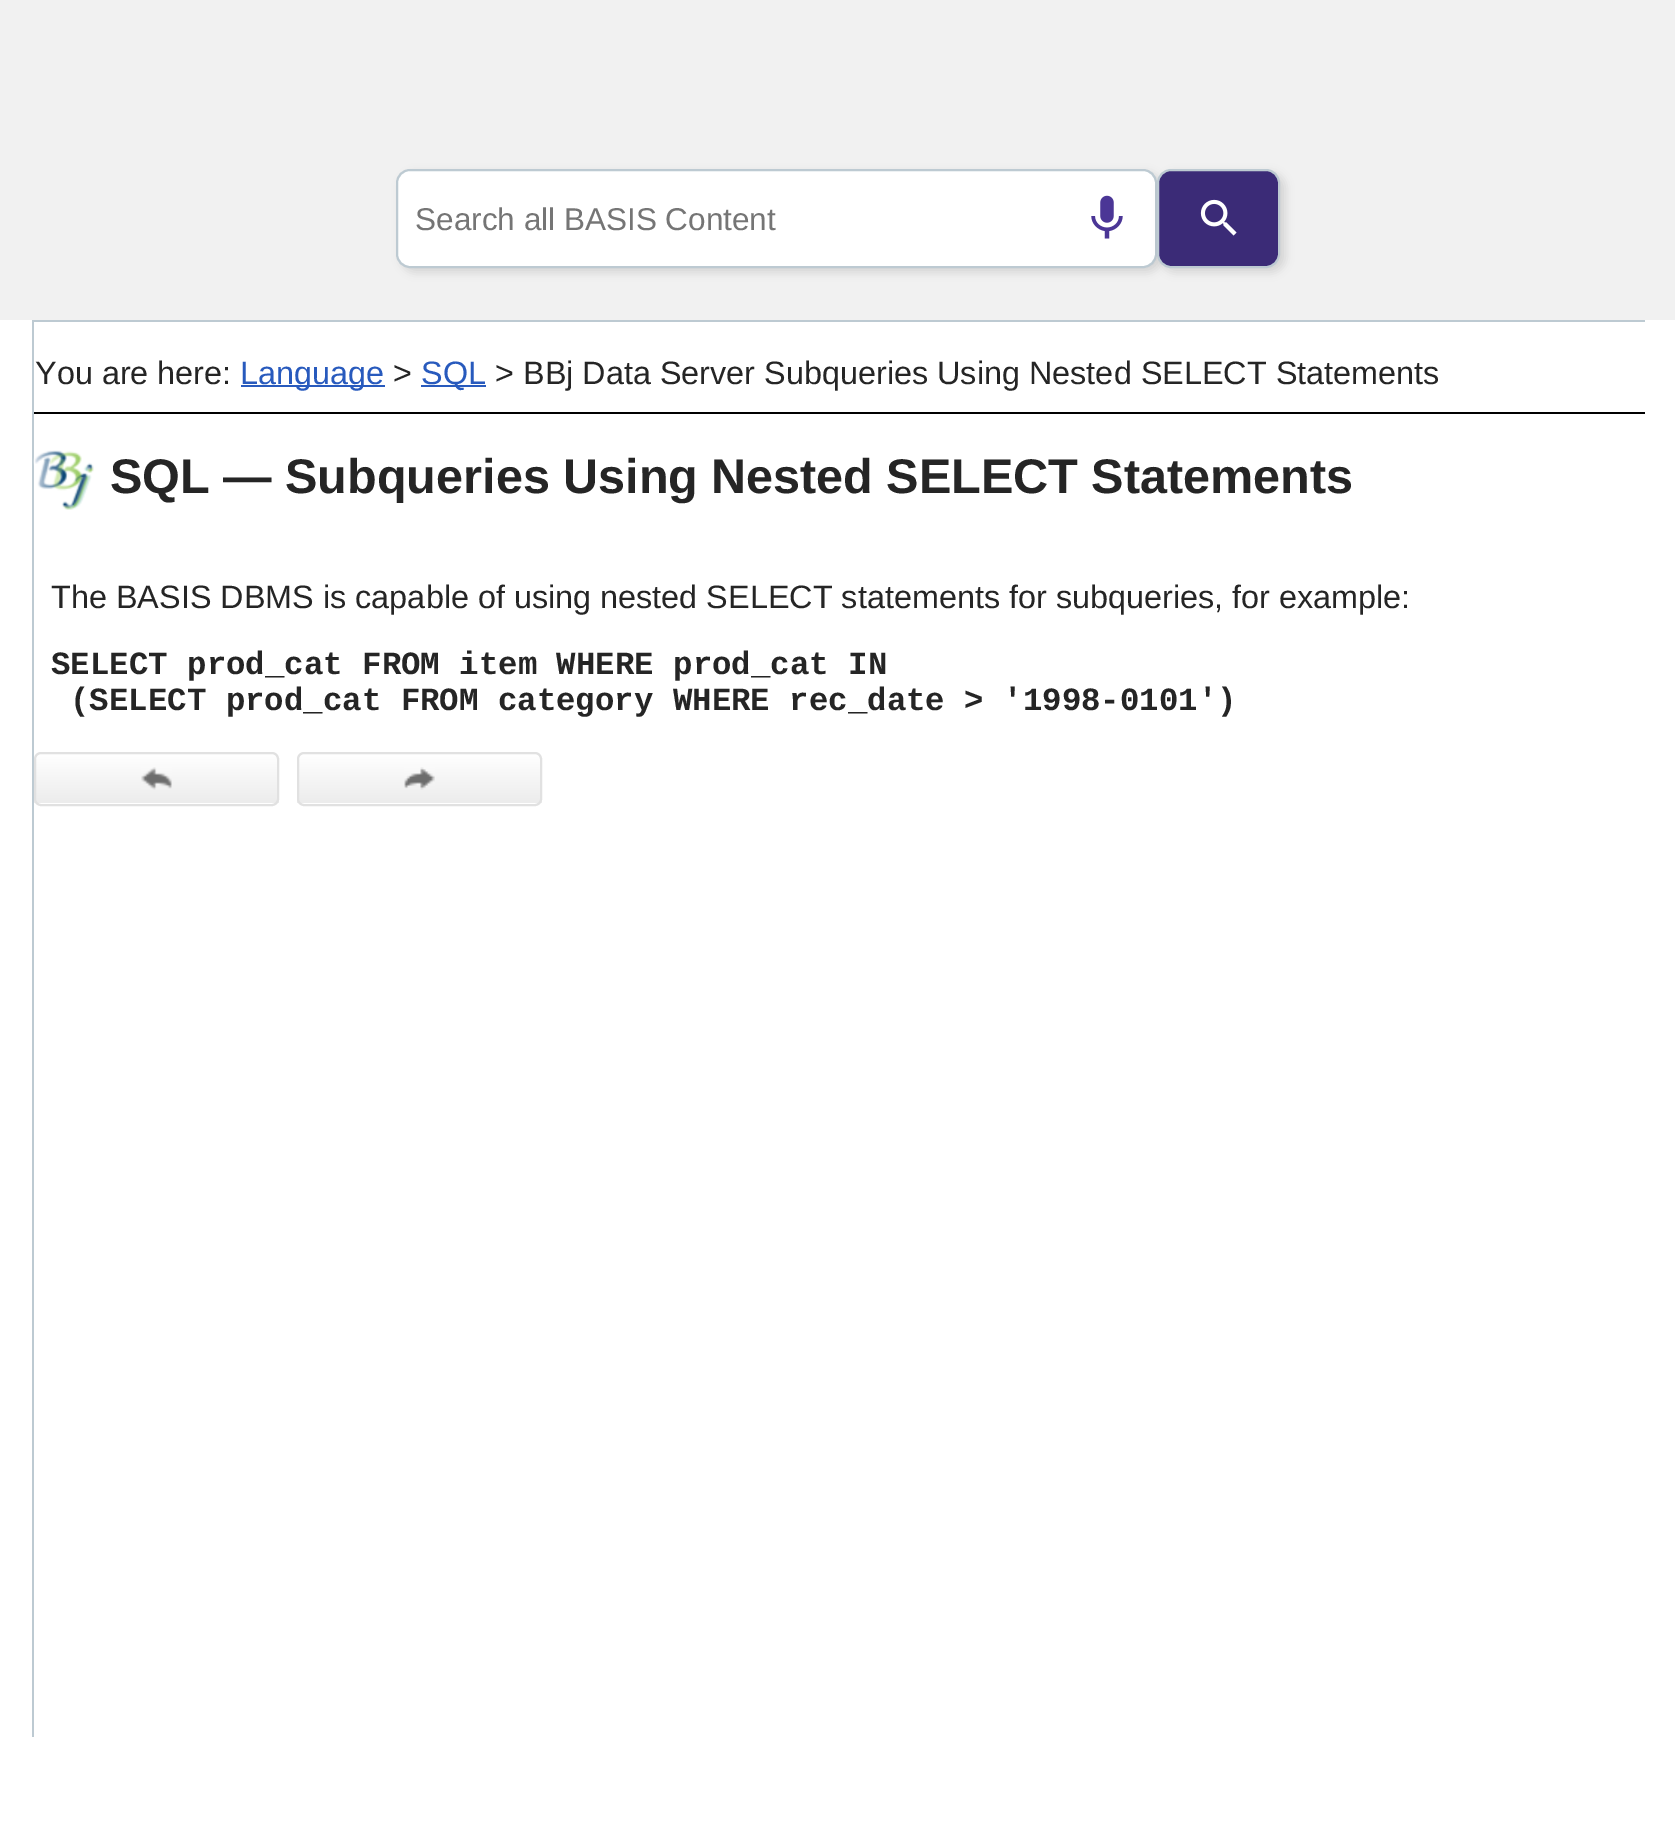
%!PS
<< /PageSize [1675 1827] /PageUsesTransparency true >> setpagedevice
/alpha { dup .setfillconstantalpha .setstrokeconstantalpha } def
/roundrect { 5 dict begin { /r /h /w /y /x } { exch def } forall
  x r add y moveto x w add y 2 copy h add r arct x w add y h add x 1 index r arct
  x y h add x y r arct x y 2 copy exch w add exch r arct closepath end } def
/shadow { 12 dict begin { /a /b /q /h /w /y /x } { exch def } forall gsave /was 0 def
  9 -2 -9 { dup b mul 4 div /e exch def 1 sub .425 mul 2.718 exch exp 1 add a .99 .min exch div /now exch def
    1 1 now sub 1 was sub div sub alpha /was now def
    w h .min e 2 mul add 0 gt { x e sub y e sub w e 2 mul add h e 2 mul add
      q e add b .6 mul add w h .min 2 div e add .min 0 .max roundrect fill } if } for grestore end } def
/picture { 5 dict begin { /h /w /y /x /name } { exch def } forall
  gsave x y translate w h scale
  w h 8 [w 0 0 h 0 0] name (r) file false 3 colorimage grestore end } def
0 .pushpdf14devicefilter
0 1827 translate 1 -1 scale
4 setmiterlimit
1 setgray
0 0 1675 1827 rectfill
0.945 setgray
0 0 1675 320 rectfill
0 setgray
401 173 760 99 14 4.5 0.12 shadow
1 setgray
397 170 759 97 13 roundrect gsave fill grestore
0.741 0.792 0.824 setrgbcolor
2 setlinewidth
stroke
/LiberationSans-Regular [31.5 0 0 -31.5 0 0] selectfont
0.459 setgray
415 230 moveto (Search all BASIS Content) show
(img1.rgb) 1091 195 32 44 picture
0 setgray
1161 173 124 99 14 4.5 0.12 shadow
0.231 0.169 0.467 setrgbcolor
1158 170 121 97 13 roundrect gsave fill grestore
0.741 0.792 0.824 setrgbcolor
stroke
(img2.rgb) 1200 199 37 37 picture
32 320 1613 2 rectfill
32 320 2 1417 rectfill
0 setgray
34 412 1611 2 rectfill
/LiberationSans-Regular [32.4 0 0 -32.4 0 0] selectfont
0.145 setgray
35 384 moveto (You are here:) show
0.157 0.353 0.741 setrgbcolor
241 385 144 2 rectfill
240 384 moveto (Language) show
0.145 setgray
393 384 moveto (>) show
0.157 0.353 0.741 setrgbcolor
421 385 65 2 rectfill
421 384 moveto (SQL) show
0.145 setgray
495 384 moveto (> BBj Data Server Subqueries Using Nested SELECT Statements) show
(img3.rgb) 33 450 61 60 picture
/LiberationSans-Bold [48.6 0 0 -48.6 0 0] selectfont
110 493 moveto -0.25 0 32 (SQL — Subqueries Using Nested SELECT Statements) widthshow
/LiberationSans-Regular [32.4 0 0 -32.4 0 0] selectfont
51 608 moveto (The BASIS DBMS is capable of using nested SELECT statements for subqueries, for example:) show
/LiberationMono-Bold [32.4 0 0 -32.4 0 0] selectfont
51 674 moveto (SELECT prod_cat FROM item WHERE prod_cat IN) show
70 710 moveto (\(SELECT prod_cat FROM category WHERE rec_date > '1998-0101'\)) show
gsave
34 752 245 54 7 roundrect clip newpath
gsave newpath 34 754 moveto 279 754 lineto 279 803 lineto 34 803 lineto closepath clip newpath
<< /ShadingType 2 /ColorSpace /DeviceRGB /Coords [156 754 156 803] /Extend [true true] /Function << /FunctionType 2 /Domain [0 1] /C0 [1 1 1] /C1 [0.925 0.925 0.925] /N 1 >> >> shfill grestore
grestore
0.882 setgray
35 753 243 52 6 roundrect stroke
(img4.rgb) 141 767 31 23 picture
gsave
297 752 245 54 7 roundrect clip newpath
gsave newpath 297 754 moveto 542 754 lineto 542 803 lineto 297 803 lineto closepath clip newpath
<< /ShadingType 2 /ColorSpace /DeviceRGB /Coords [420 754 420 803] /Extend [true true] /Function << /FunctionType 2 /Domain [0 1] /C0 [1 1 1] /C1 [0.925 0.925 0.925] /N 1 >> >> shfill grestore
grestore
298 753 243 52 6 roundrect stroke
(img5.rgb) 404 767 31 23 picture
.poppdf14devicefilter showpage
